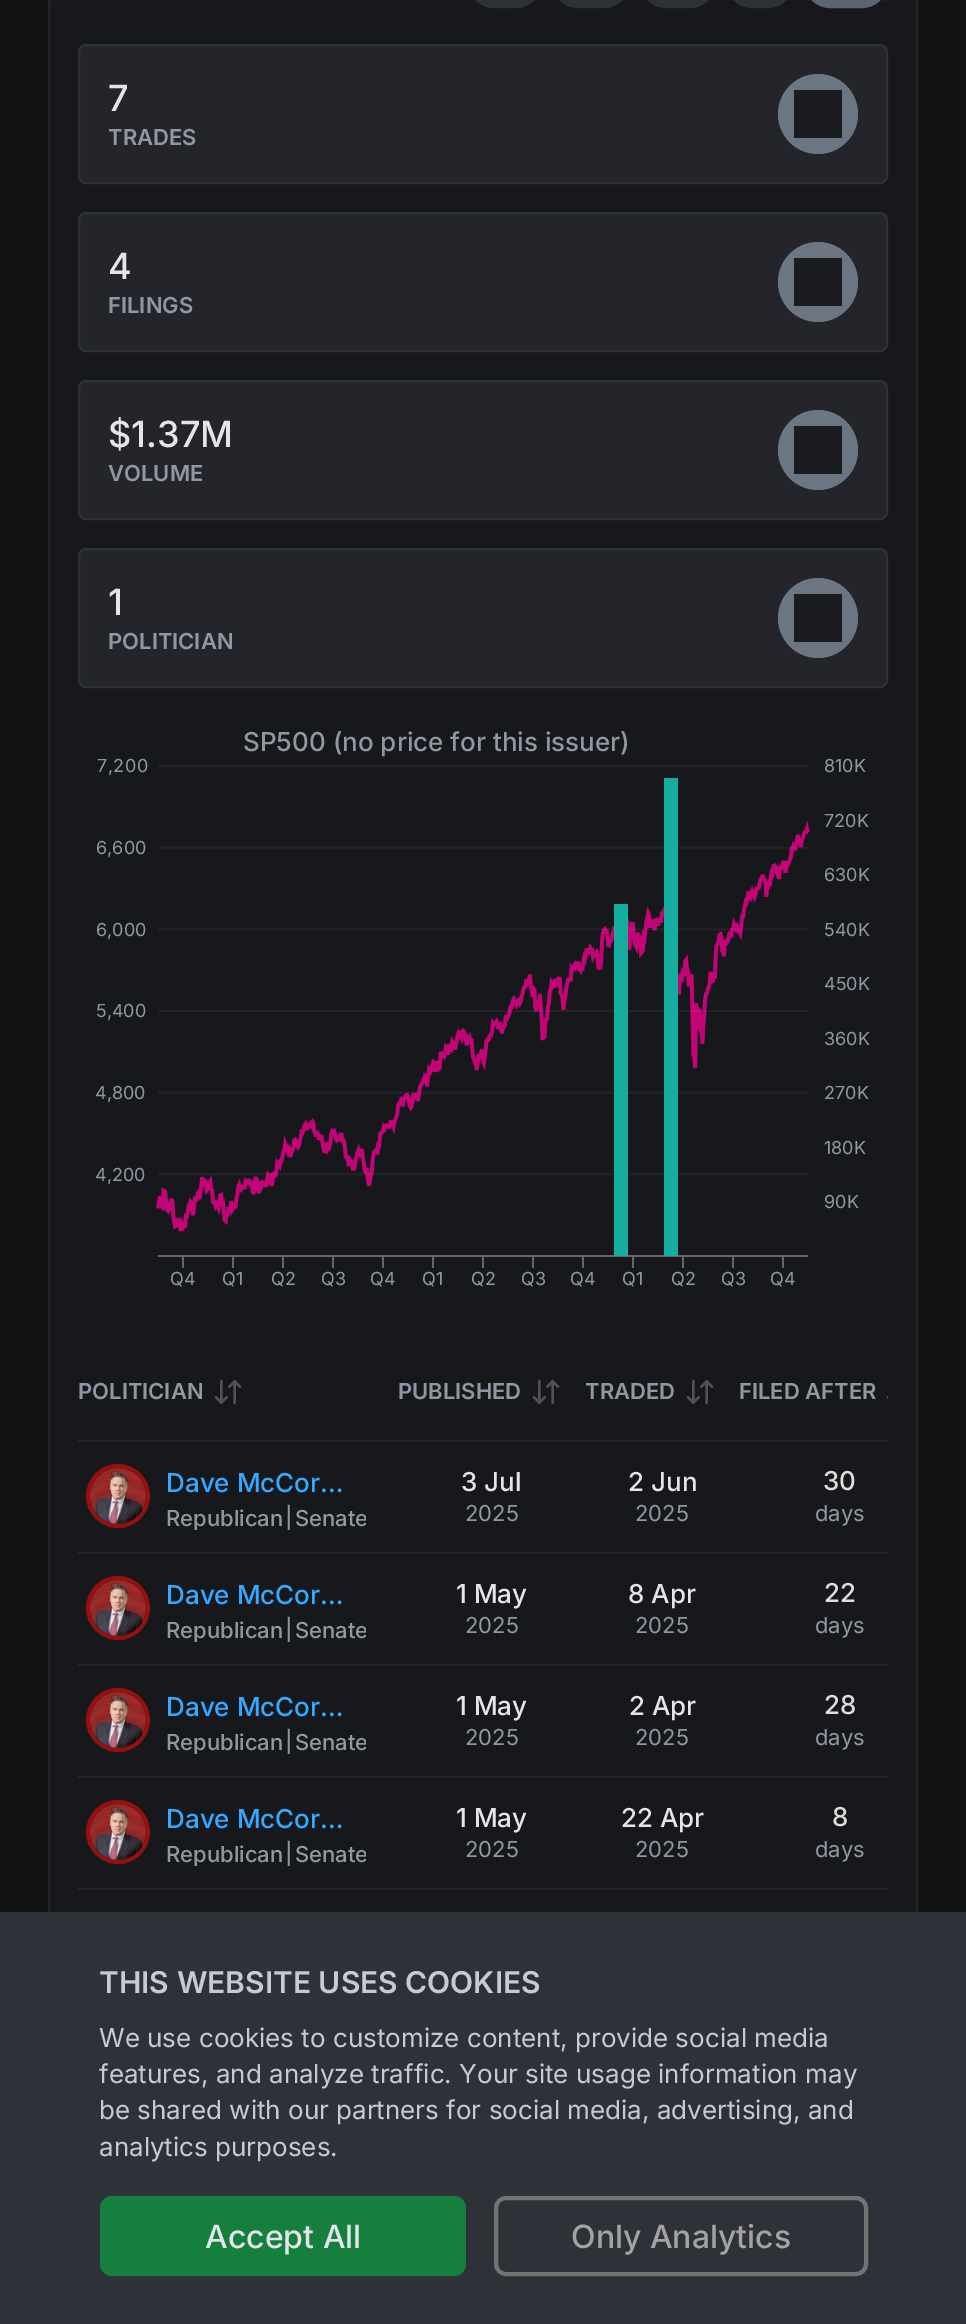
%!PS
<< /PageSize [966 2324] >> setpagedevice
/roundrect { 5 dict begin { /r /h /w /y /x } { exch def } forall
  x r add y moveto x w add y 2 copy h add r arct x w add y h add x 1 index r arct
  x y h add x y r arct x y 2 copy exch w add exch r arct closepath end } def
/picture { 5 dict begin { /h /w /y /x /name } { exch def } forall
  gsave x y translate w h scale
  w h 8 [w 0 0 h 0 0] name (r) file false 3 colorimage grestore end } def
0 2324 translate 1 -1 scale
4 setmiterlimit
0.063 0.067 0.071 setrgbcolor
0 0 966 2324 rectfill
0.09 0.094 0.11 setrgbcolor
50 0 866 1912 rectfill
0.149 setgray
2 setlinewidth
49 -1 868 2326 rectstroke
0.18 0.196 0.22 setrgbcolor
469 -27 72 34 25 roundrect gsave fill grestore
stroke
553 -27 76 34 25 roundrect gsave fill grestore
stroke
641 -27 74 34 25 roundrect gsave fill grestore
stroke
727 -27 66 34 25 roundrect gsave fill grestore
stroke
0.361 0.392 0.439 setrgbcolor
805 -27 82 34 25 roundrect gsave fill grestore
stroke
0.137 0.145 0.165 setrgbcolor
79 45 808 138 7 roundrect gsave fill grestore
0.18 0.196 0.22 setrgbcolor
stroke
/Inter-Medium [36 0 0 -36 0 0] selectfont
0.89 0.898 0.91 setrgbcolor
108 111 moveto (7) show
/Inter-SemiBold [22 0 0 -22 0 0] selectfont
0.561 0.592 0.639 setrgbcolor
108 145 moveto (TRADES) show
0.424 0.463 0.514 setrgbcolor
newpath 818 114 40 0 360 arc closepath fill
0.106 0.11 0.125 setrgbcolor
794 90 48 48 rectfill
0.137 0.145 0.165 setrgbcolor
79 213 808 138 7 roundrect gsave fill grestore
0.18 0.196 0.22 setrgbcolor
stroke
/Inter-Medium [36 0 0 -36 0 0] selectfont
0.89 0.898 0.91 setrgbcolor
108 279 moveto (4) show
/Inter-SemiBold [22 0 0 -22 0 0] selectfont
0.561 0.592 0.639 setrgbcolor
108 313 moveto (FILINGS) show
0.424 0.463 0.514 setrgbcolor
newpath 818 282 40 0 360 arc closepath fill
0.106 0.11 0.125 setrgbcolor
794 258 48 48 rectfill
0.137 0.145 0.165 setrgbcolor
79 381 808 138 7 roundrect gsave fill grestore
0.18 0.196 0.22 setrgbcolor
stroke
/Inter-Medium [36 0 0 -36 0 0] selectfont
0.89 0.898 0.91 setrgbcolor
108 447 moveto ($1.37M) show
/Inter-SemiBold [22 0 0 -22 0 0] selectfont
0.561 0.592 0.639 setrgbcolor
108 481 moveto (VOLUME) show
0.424 0.463 0.514 setrgbcolor
newpath 818 450 40 0 360 arc closepath fill
0.106 0.11 0.125 setrgbcolor
794 426 48 48 rectfill
0.137 0.145 0.165 setrgbcolor
79 549 808 138 7 roundrect gsave fill grestore
0.18 0.196 0.22 setrgbcolor
stroke
/Inter-Medium [36 0 0 -36 0 0] selectfont
0.89 0.898 0.91 setrgbcolor
108 615 moveto (1) show
/Inter-SemiBold [22 0 0 -22 0 0] selectfont
0.561 0.592 0.639 setrgbcolor
108 649 moveto (POLITICIAN) show
0.424 0.463 0.514 setrgbcolor
newpath 818 618 40 0 360 arc closepath fill
0.106 0.11 0.125 setrgbcolor
794 594 48 48 rectfill
/Inter-Medium [26 0 0 -26 0 0] selectfont
0.561 0.592 0.639 setrgbcolor
243 751 moveto (SP500 \(no price for this issuer\)) show
(img1.rgb) 156 765 654 467 picture
/Inter-Regular [18 0 0 -18 0 0] selectfont
97 772 moveto 0.5 0 (7,200) ashow
96 854 moveto (6,600) show
96 936 moveto (6,000) show
96 1017 moveto (5,400) show
95 1099 moveto (4,800) show
95 1181 moveto (4,200) show
0.4 setgray
158 1255 650 2 rectfill
782 1256 2 12 rectfill
732 1256 2 12 rectfill
682 1256 2 12 rectfill
632 1256 2 12 rectfill
582 1256 2 12 rectfill
532 1256 2 12 rectfill
482 1256 2 12 rectfill
432 1256 2 12 rectfill
382 1256 2 12 rectfill
332 1256 2 12 rectfill
282 1256 2 12 rectfill
232 1256 2 12 rectfill
182 1256 2 12 rectfill
0.082 0.678 0.627 setrgbcolor
664 778 14 478 rectfill
614 904 14 352 rectfill
0.561 0.592 0.639 setrgbcolor
824 772 moveto (810K) show
824 827 moveto (720K) show
824 881 moveto (630K) show
824 936 moveto (540K) show
824 990 moveto (450K) show
824 1045 moveto (360K) show
824 1099 moveto (270K) show
824 1154 moveto (180K) show
824 1208 moveto (90K) show
170 1285 moveto (Q4) show
222 1285 moveto (Q1) show
271 1285 moveto (Q2) show
321 1285 moveto (Q3) show
370 1285 moveto (Q4) show
422 1285 moveto (Q1) show
471 1285 moveto (Q2) show
521 1285 moveto (Q3) show
570 1285 moveto (Q4) show
622 1285 moveto (Q1) show
671 1285 moveto (Q2) show
721 1285 moveto (Q3) show
770 1285 moveto (Q4) show
0.133 0.145 0.165 setrgbcolor
78 1440 810 2 rectfill
/Inter-SemiBold [22 0 0 -22 0 0] selectfont
0.561 0.592 0.639 setrgbcolor
78 1399 moveto (POLITICIAN) show
(img2.rgb) 214 1380 28 24 picture
398 1399 moveto (PUBLISHED) show
(img2.rgb) 532 1380 28 24 picture
585 1399 moveto (TRADED) show
(img2.rgb) 686 1380 28 24 picture
739 1399 moveto (FILED AFTER) show
(img3.rgb) 886 1396 2 3 picture
0.133 0.145 0.165 setrgbcolor
78 1552 810 2 rectfill
0.588 0.063 0.063 setrgbcolor
4 setlinewidth
newpath 118 1496 30 0 360 arc closepath stroke
(img4.rgb) 90 1468 56 56 picture
/Inter-Medium [26 0 0 -26 0 0] selectfont
0.2 0.667 1 setrgbcolor
166 1492 moveto (Dave McCor…) show
gsave
166 1464 200 66 rectclip
/Inter-Medium [22 0 0 -22 0 0] selectfont
0.561 0.592 0.639 setrgbcolor
166 1526 moveto (Republican) show
285 1526 moveto (|) show
295 1526 moveto (Senate) show
grestore
0.89 0.898 0.91 setrgbcolor
461 1491 moveto (3 Jul) show
/Inter-Regular [22 0 0 -22 0 0] selectfont
0.561 0.592 0.639 setrgbcolor
465 1521 moveto (2025) show
/Inter-Medium [26 0 0 -26 0 0] selectfont
0.89 0.898 0.91 setrgbcolor
628 1491 moveto (2 Jun) show
/Inter-Regular [22 0 0 -22 0 0] selectfont
0.561 0.592 0.639 setrgbcolor
635 1521 moveto (2025) show
/Inter-Medium [26 0 0 -26 0 0] selectfont
0.867 setgray
823 1490 moveto (30) show
/Inter-Regular [22 0 0 -22 0 0] selectfont
0.561 0.592 0.639 setrgbcolor
815 1521 moveto (days) show
0.133 0.145 0.165 setrgbcolor
78 1664 810 2 rectfill
0.588 0.063 0.063 setrgbcolor
newpath 118 1608 30 0 360 arc closepath stroke
(img4.rgb) 90 1580 56 56 picture
/Inter-Medium [26 0 0 -26 0 0] selectfont
0.2 0.667 1 setrgbcolor
166 1604 moveto (Dave McCor…) show
gsave
166 1576 200 66 rectclip
/Inter-Medium [22 0 0 -22 0 0] selectfont
0.561 0.592 0.639 setrgbcolor
166 1638 moveto (Republican) show
285 1638 moveto (|) show
295 1638 moveto (Senate) show
grestore
0.89 0.898 0.91 setrgbcolor
456 1603 moveto (1 May) show
/Inter-Regular [22 0 0 -22 0 0] selectfont
0.561 0.592 0.639 setrgbcolor
465 1633 moveto (2025) show
/Inter-Medium [26 0 0 -26 0 0] selectfont
0.89 0.898 0.91 setrgbcolor
628 1603 moveto (8 Apr) show
/Inter-Regular [22 0 0 -22 0 0] selectfont
0.561 0.592 0.639 setrgbcolor
635 1633 moveto (2025) show
/Inter-Medium [26 0 0 -26 0 0] selectfont
0.867 setgray
824 1602 moveto (22) show
/Inter-Regular [22 0 0 -22 0 0] selectfont
0.561 0.592 0.639 setrgbcolor
815 1633 moveto (days) show
0.133 0.145 0.165 setrgbcolor
78 1776 810 2 rectfill
0.588 0.063 0.063 setrgbcolor
newpath 118 1720 30 0 360 arc closepath stroke
(img4.rgb) 90 1692 56 56 picture
/Inter-Medium [26 0 0 -26 0 0] selectfont
0.2 0.667 1 setrgbcolor
166 1716 moveto (Dave McCor…) show
gsave
166 1688 200 66 rectclip
/Inter-Medium [22 0 0 -22 0 0] selectfont
0.561 0.592 0.639 setrgbcolor
166 1750 moveto (Republican) show
285 1750 moveto (|) show
295 1750 moveto (Senate) show
grestore
0.89 0.898 0.91 setrgbcolor
456 1715 moveto (1 May) show
/Inter-Regular [22 0 0 -22 0 0] selectfont
0.561 0.592 0.639 setrgbcolor
465 1745 moveto (2025) show
/Inter-Medium [26 0 0 -26 0 0] selectfont
0.89 0.898 0.91 setrgbcolor
629 1715 moveto (2 Apr) show
/Inter-Regular [22 0 0 -22 0 0] selectfont
0.561 0.592 0.639 setrgbcolor
635 1745 moveto (2025) show
/Inter-Medium [26 0 0 -26 0 0] selectfont
0.867 setgray
824 1714 moveto (28) show
/Inter-Regular [22 0 0 -22 0 0] selectfont
0.561 0.592 0.639 setrgbcolor
815 1745 moveto (days) show
0.133 0.145 0.165 setrgbcolor
78 1888 810 2 rectfill
0.588 0.063 0.063 setrgbcolor
newpath 118 1832 30 0 360 arc closepath stroke
(img4.rgb) 90 1804 56 56 picture
/Inter-Medium [26 0 0 -26 0 0] selectfont
0.2 0.667 1 setrgbcolor
166 1828 moveto (Dave McCor…) show
gsave
166 1800 200 66 rectclip
/Inter-Medium [22 0 0 -22 0 0] selectfont
0.561 0.592 0.639 setrgbcolor
166 1862 moveto (Republican) show
285 1862 moveto (|) show
295 1862 moveto (Senate) show
grestore
0.89 0.898 0.91 setrgbcolor
456 1827 moveto (1 May) show
/Inter-Regular [22 0 0 -22 0 0] selectfont
0.561 0.592 0.639 setrgbcolor
465 1857 moveto (2025) show
/Inter-Medium [26 0 0 -26 0 0] selectfont
0.89 0.898 0.91 setrgbcolor
621 1827 moveto (22 Apr) show
/Inter-Regular [22 0 0 -22 0 0] selectfont
0.561 0.592 0.639 setrgbcolor
635 1857 moveto (2025) show
/Inter-Medium [26 0 0 -26 0 0] selectfont
0.867 setgray
832 1826 moveto (8) show
/Inter-Regular [22 0 0 -22 0 0] selectfont
0.561 0.592 0.639 setrgbcolor
815 1857 moveto (days) show
0.18 0.192 0.22 setrgbcolor
0 1912 966 412 rectfill
/Inter-SemiBold [30 0 0 -30 0 0] selectfont
0.78 0.796 0.82 setrgbcolor
99 1993 moveto (THIS WEBSITE USES COOKIES) show
/Inter-Regular [26 0 0 -26 0 0] selectfont
99 2047 moveto (We use cookies to customize content, provide social media) show
99 2083 moveto (features, and analyze traffic. Your site usage information may) show
99 2119 moveto (be shared with our partners for social media, advertising, and) show
99 2156 moveto (analytics purposes.) show
0.082 0.502 0.239 setrgbcolor
100 2196 366 80 12 roundrect fill
/Inter-Medium [32 0 0 -32 0 0] selectfont
0.89 0.898 0.91 setrgbcolor
205 2248 moveto (Accept All) show
0.451 setgray
496 2198 370 76 10 roundrect stroke
0.639 setgray
571 2248 moveto (Only Analytics) show
showpage
